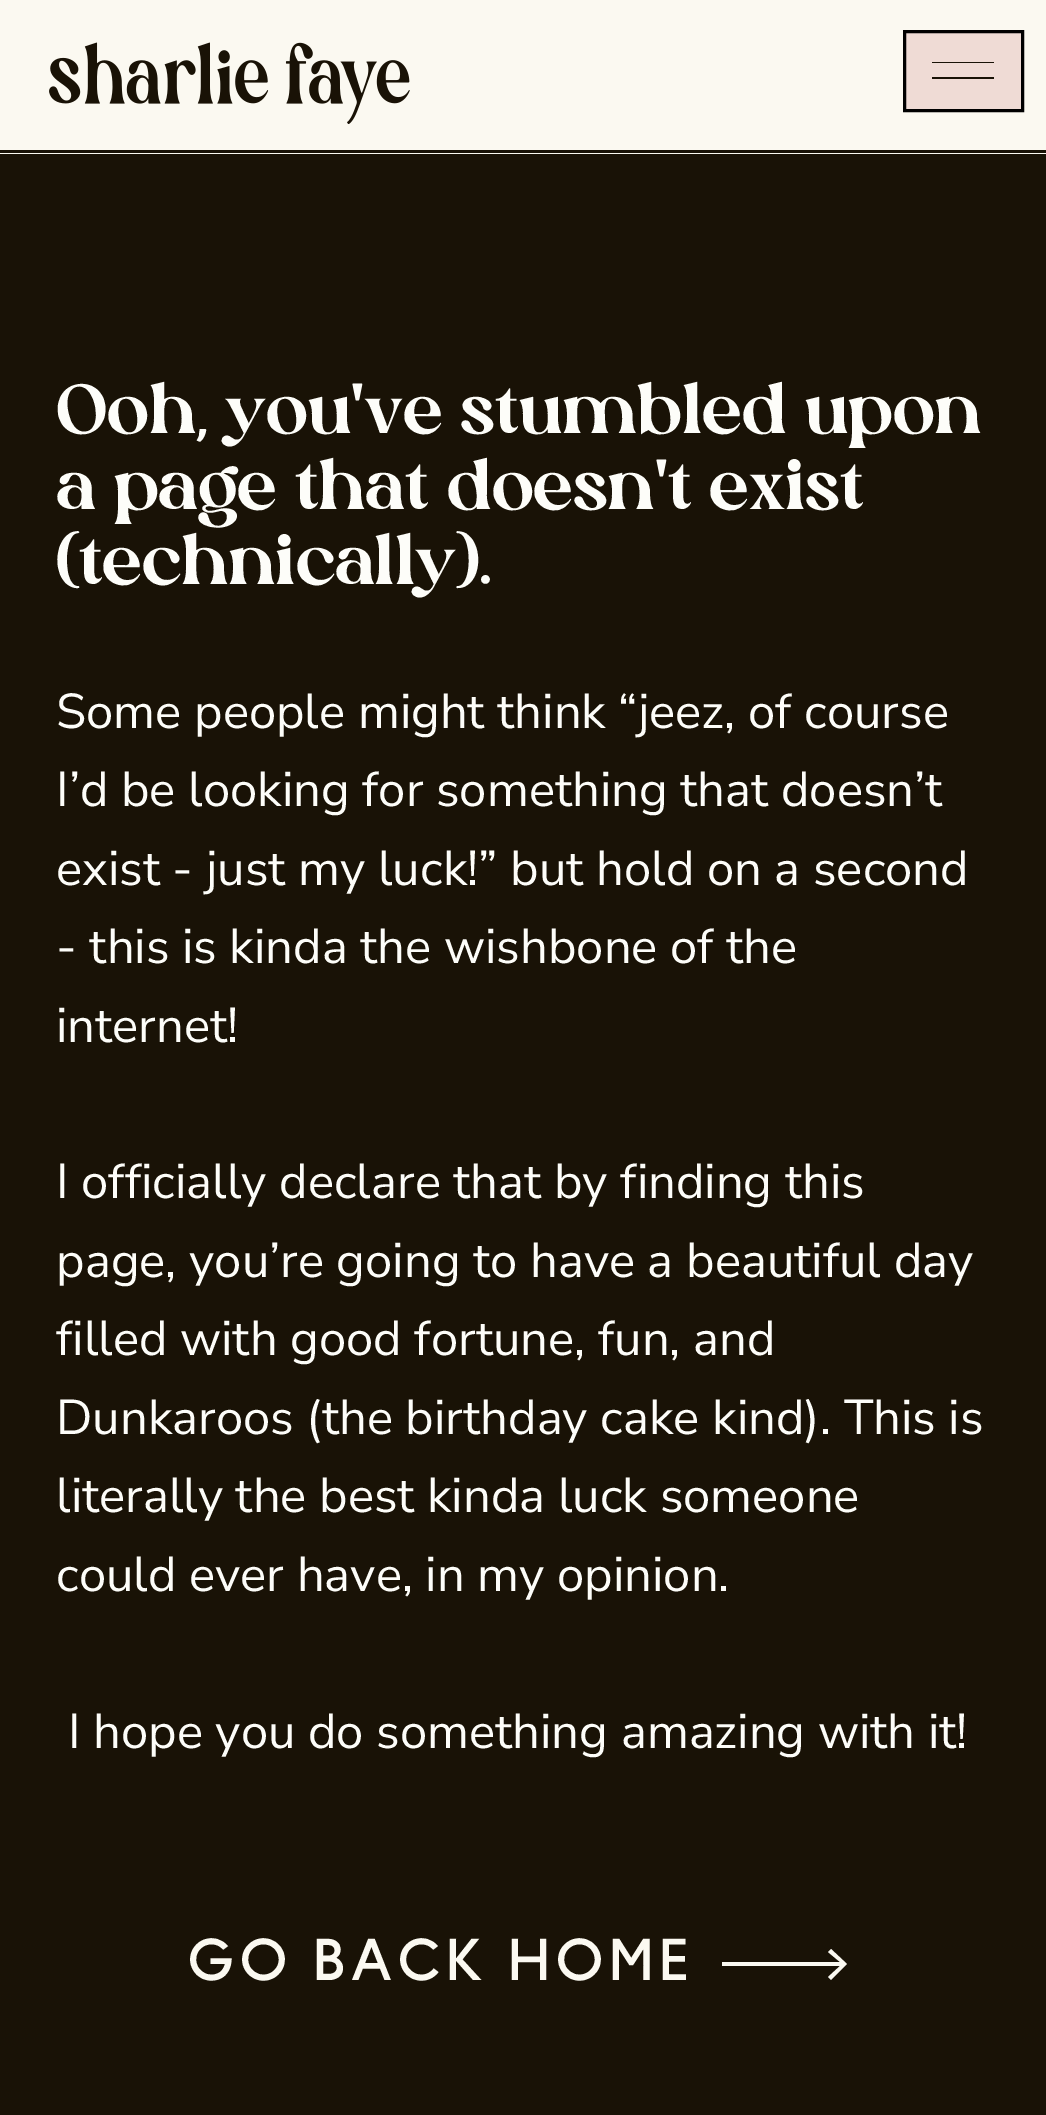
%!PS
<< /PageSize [1046 2115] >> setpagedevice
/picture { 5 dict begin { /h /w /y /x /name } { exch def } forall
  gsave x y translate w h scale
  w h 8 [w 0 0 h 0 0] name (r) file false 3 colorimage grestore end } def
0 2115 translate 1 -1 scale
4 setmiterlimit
0.098 0.071 0.024 setrgbcolor
0 0 1046 2115 rectfill
0.984 0.976 0.945 setrgbcolor
0 0 1046 154 rectfill
(img1.rgb) 49 42 361 82 picture
0.937 0.859 0.835 setrgbcolor
newpath 904.5 31.5 moveto 1022.5 31.5 lineto 1022.5 110.5 lineto 904.5 110.5 lineto closepath gsave fill grestore
0 setgray
3 setlinewidth
stroke
0.098 0.071 0.024 setrgbcolor
0 150 1046 3 rectfill
932 62 62 1 rectfill
932 77 62 2 rectfill
/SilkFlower-Regular [68.75 0 0 -68.75 0 0] selectfont
0.992 0.992 0.976 setrgbcolor
56 433 moveto (Ooh, you've stumbled upon) show
56 509 moveto (a page that doesn't exist) show
56 584 moveto (\(technically\).) show
/NunitoSans-ExtraLight [49 0 0 -49 0 0] selectfont
56 728 moveto (Some people might think “jeez, of course) show
56 806 moveto (I’d be looking for something that doesn’t) show
56 885 moveto (exist - just my luck!” but hold on a second) show
56 963 moveto (- this is kinda the wishbone of the) show
56 1042 moveto (internet!) show
56 1198 moveto (I officially declare that by finding this) show
56 1277 moveto (page, you’re going to have a beautiful day) show
56 1355 moveto (filled with good fortune, fun, and) show
56 1434 moveto (Dunkaroos \(the birthday cake kind\). This is) show
56 1512 moveto (literally the best kinda luck someone) show
56 1591 moveto (could ever have, in my opinion.) show
68 1748 moveto (I hope you do something amazing with it!) show
/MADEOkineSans-Regular [58.9 0 0 -58.9 0 0] selectfont
0.984 0.976 0.945 setrgbcolor
188 1980 moveto 5.9 0 (GO BACK HOME) ashow
newpath 831 1949 moveto 828 1952 lineto 840 1962 lineto 722 1962 lineto 722 1966 lineto 840 1966 lineto 828 1977 lineto 831 1980 lineto 847 1964 lineto closepath fill
showpage
